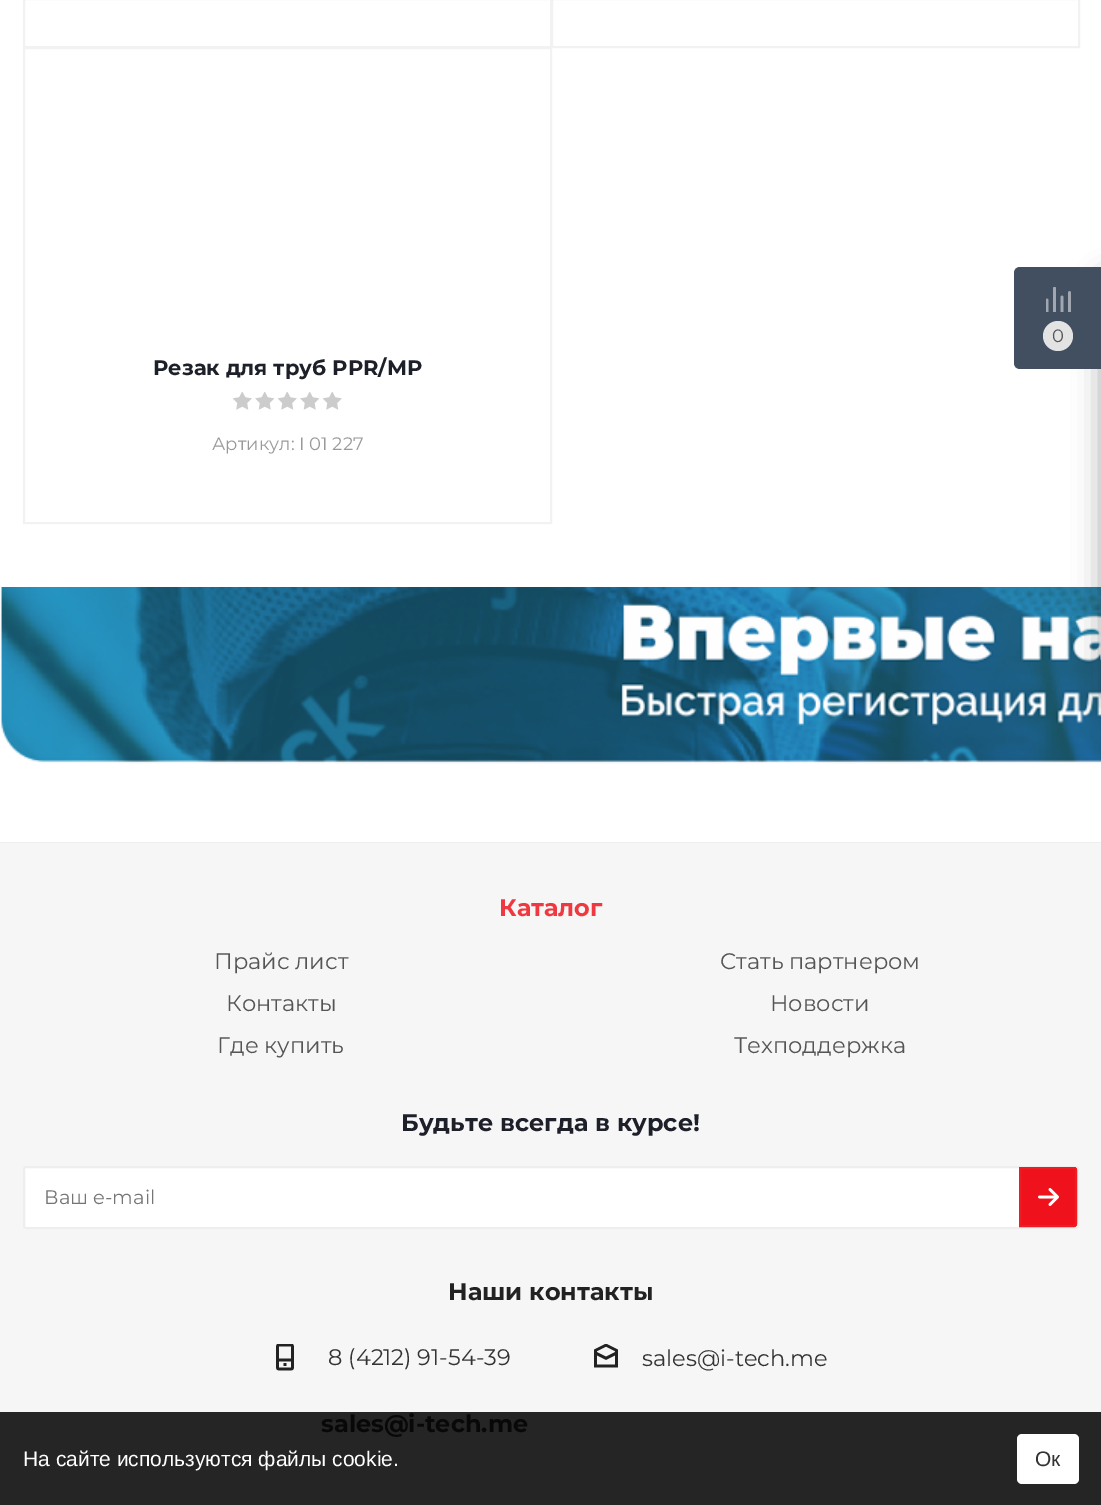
%!PS
<< /PageSize [1101 1505] /PageUsesTransparency true >> setpagedevice
/alpha { dup .setfillconstantalpha .setstrokeconstantalpha } def
/roundrect { 5 dict begin { /r /h /w /y /x } { exch def } forall
  x r add y moveto x w add y 2 copy h add r arct x w add y h add x 1 index r arct
  x y h add x y r arct x y 2 copy exch w add exch r arct closepath end } def
/shadow { 12 dict begin { /a /b /q /h /w /y /x } { exch def } forall gsave /was 0 def
  9 -2 -9 { dup b mul 4 div /e exch def 1 sub .425 mul 2.718 exch exp 1 add a .99 .min exch div /now exch def
    1 1 now sub 1 was sub div sub alpha /was now def
    w h .min e 2 mul add 0 gt { x e sub y e sub w e 2 mul add h e 2 mul add
      q e add b .6 mul add w h .min 2 div e add .min 0 .max roundrect fill } if } for grestore end } def
/picture { 5 dict begin { /h /w /y /x /name } { exch def } forall
  gsave x y translate w h scale
  w h 8 [w 0 0 h 0 0] name (r) file false 3 colorimage grestore end } def
0 .pushpdf14devicefilter
0 1505 translate 1 -1 scale
4 setmiterlimit
1 setgray
0 0 1101 1505 rectfill
(img4.rgb) 0 587 1101 177 picture
0.173 setgray
1101 276 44 425 3 13.5 0.4 shadow
0.259 0.31 0.376 setrgbcolor
newpath 1020 267 moveto 1101 267 lineto 1101 369 lineto 1020 369 lineto 1016.5 369 1014 366.5 1014 363 curveto 1014 273 lineto 1014 269.5 1016.5 267 1020 267 curveto closepath fill
(img1.rgb) 1046 287 25 25 picture
0.89 setgray
newpath 1058 336 15 0 360 arc closepath fill
/Montserrat-Regular [18 0 0 -18 0 0] selectfont
0.333 setgray
1052 342 moveto (0) show
0.949 setgray
2 setlinewidth
24 -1 527 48 rectstroke
552 -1 527 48 rectstroke
24 48 527 475 rectstroke
/Montserrat-Bold [21 0 0 -21 0 0] selectfont
0.114 0.125 0.161 setrgbcolor
153 375 moveto (Резак для труб PPR/MP) show
(img2.rgb) 233 392 19 18 picture
(img3.rgb) 255 392 20 18 picture
(img2.rgb) 278 392 19 18 picture
(img3.rgb) 300 392 20 18 picture
(img2.rgb) 323 392 19 18 picture
/Montserrat-Regular [18 0 0 -18 0 0] selectfont
0.6 setgray
212 450 moveto (Артикул: I 01 227) show
0.933 setgray
0 842 1101 1 rectfill
0.965 0.965 0.969 setrgbcolor
0 843 1101 569 rectfill
0.145 setgray
0 1412 1101 93 rectfill
/Montserrat-Bold [24 0 0 -24 0 0] selectfont
0.941 0.22 0.251 setrgbcolor
499 916 moveto (Каталог) show
/Montserrat-Regular [22.5 0 0 -22.5 0 0] selectfont
0.333 setgray
214 969 moveto (Прайс лист) show
720 969 moveto (Стать партнером) show
226 1011 moveto (Контакты) show
770 1011 moveto (Новости) show
217 1053 moveto (Где купить) show
734 1053 moveto (Техподдержка) show
/Montserrat-Bold [24 0 0 -24 0 0] selectfont
0.114 0.125 0.161 setrgbcolor
401 1131 moveto (Будьте всегда в курсе!) show
1 setgray
24 1167 1054 61 2 roundrect gsave fill grestore
0.933 setgray
stroke
/Montserrat-Regular [19.5 0 0 -19.5 0 0] selectfont
0.459 setgray
44 1204 moveto (Ваш e-mail) show
0.937 0.067 0.106 setrgbcolor
newpath 1019 1167 moveto 1074 1167 lineto 1075.5 1167 1077 1168.5 1077 1170 curveto 1077 1224 lineto 1077 1225.5 1075.5 1227 1074 1227 curveto 1019 1227 lineto closepath fill
(img5.rgb) 1038 1188 21 18 picture
0.933 0.11 0.145 setrgbcolor
newpath 1020 1168 moveto 1074 1168 lineto 1075 1168 1076 1169 1076 1170 curveto 1076 1224 lineto 1076 1225 1075 1226 1074 1226 curveto 1020 1226 lineto closepath stroke
/Montserrat-Bold [24 0 0 -24 0 0] selectfont
0.133 setgray
448 1300 moveto (Наши контакты) show
(img6.rgb) 276 1344 18 27 picture
/Montserrat-Regular [22.5 0 0 -22.5 0 0] selectfont
0.2 setgray
328 1365 moveto (8 \(4212\) 91-54-39) show
/Montserrat-Bold [24 0 0 -24 0 0] selectfont
0.031 setgray
321 1432 moveto (sales@i-tech.me) show
(img7.rgb) 594 1344 24 24 picture
/Montserrat-Regular [22.5 0 0 -22.5 0 0] selectfont
0.2 setgray
642 1366 moveto (sales@i-tech.me) show
/LiberationSans-Regular [21 0 0 -21 0 0] selectfont
1 setgray
23 1466 moveto (На сайте используются файлы cookie.) show
1017 1434 62 50 5 roundrect fill
0.2 setgray
1035 1466 moveto (Ок) show
.poppdf14devicefilter showpage
